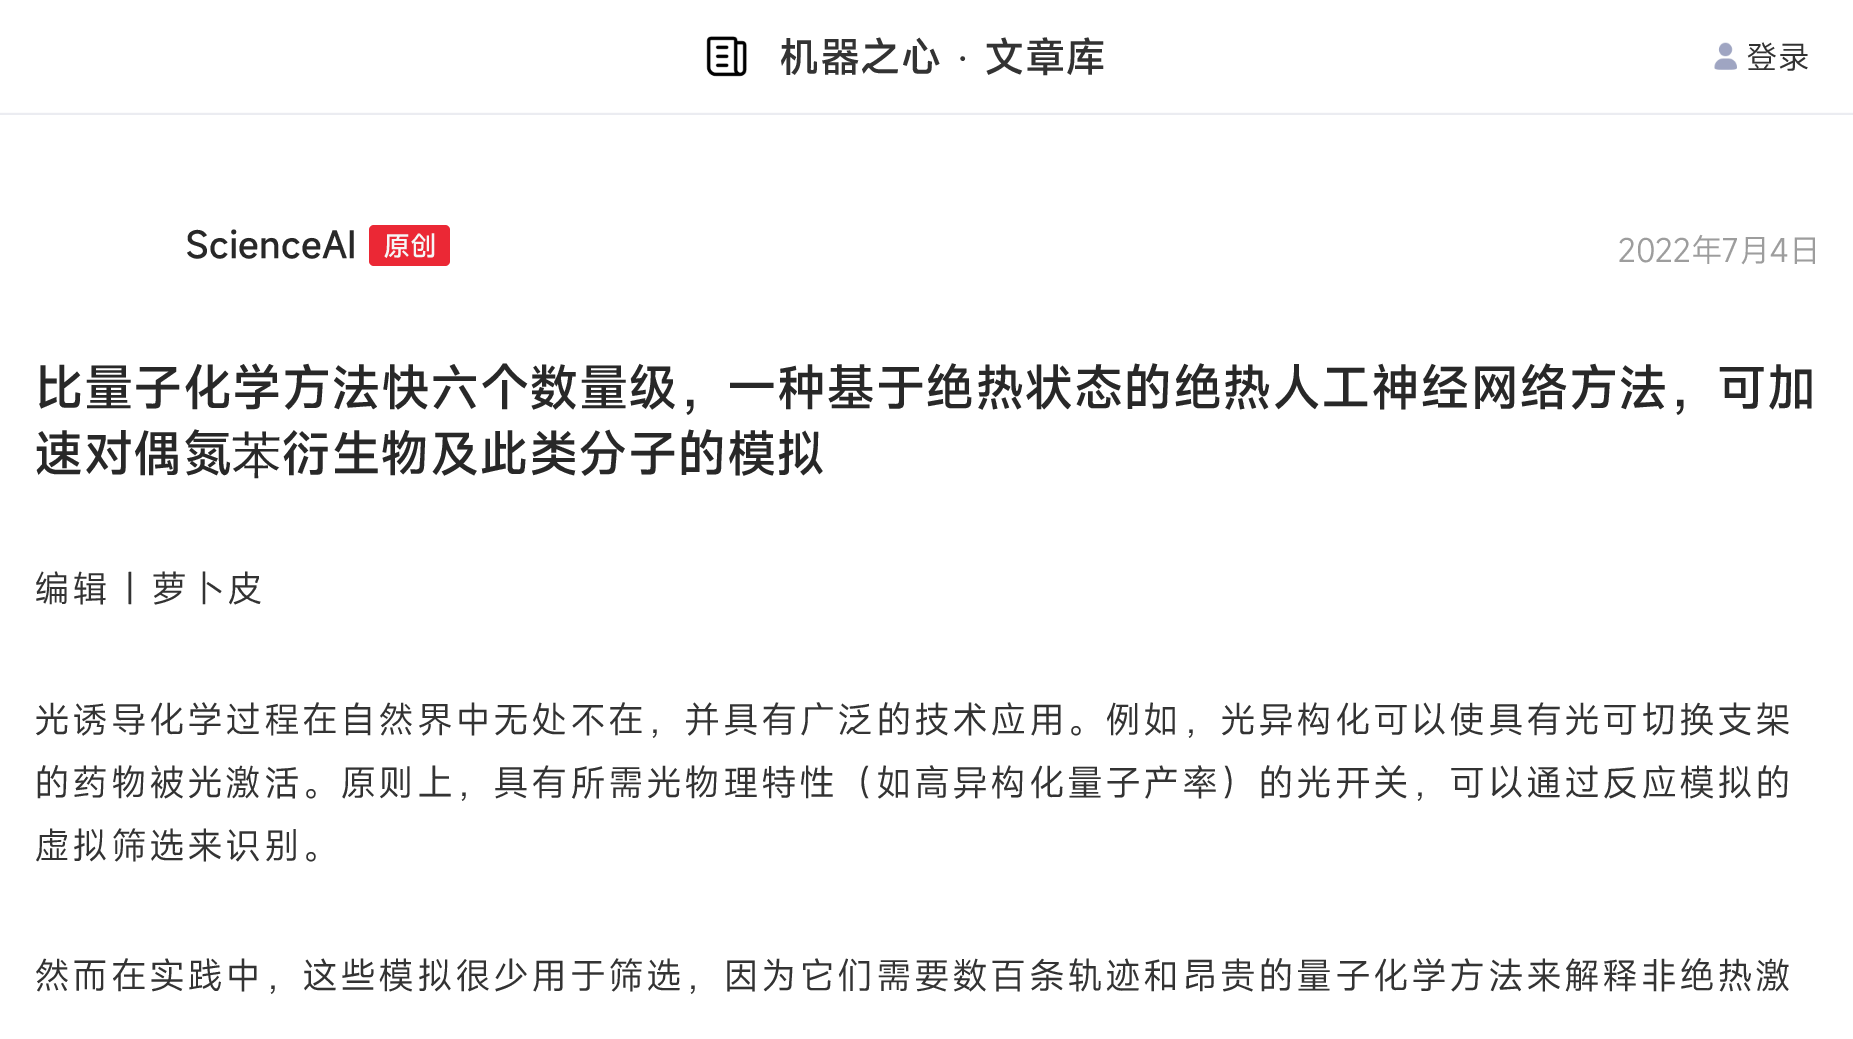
%!PS
<< /PageSize [1853 1039] >> setpagedevice
/roundrect { 5 dict begin { /r /h /w /y /x } { exch def } forall
  x r add y moveto x w add y 2 copy h add r arct x w add y h add x 1 index r arct
  x y h add x y r arct x y 2 copy exch w add exch r arct closepath end } def
/picture { 5 dict begin { /h /w /y /x /name } { exch def } forall
  gsave x y translate w h scale
  w h 8 [w 0 0 h 0 0] name (r) file false 3 colorimage grestore end } def
0 1039 translate 1 -1 scale
4 setmiterlimit
1 setgray
0 0 1853 1039 rectfill
0.922 0.925 0.945 setrgbcolor
0 113 1853 2 rectfill
0.984 0.984 0.988 setrgbcolor
0 112 1853 1 rectfill
(img1.rgb) 706 36 41 41 picture
/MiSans-Medium [40.5 0 0 -40.5 0 0] selectfont
0.2 setgray
779 72 moveto (机器之心) show
/LiberationSerif-Regular [40.5 0 0 -40.5 0 0] selectfont
956 72 moveto (·) show
/MiSans-Medium [40.5 0 0 -40.5 0 0] selectfont
984 72 moveto (文章库) show
(img2.rgb) 1714 42 23 28 picture
/MiSans-Regular [31.5 0 0 -31.5 0 0] selectfont
1746 69 moveto (登录) show
/MiSans-Medium [36 0 0 -36 0 0] selectfont
0.157 setgray
186 258 moveto (ScienceAI) show
0.922 0.157 0.208 setrgbcolor
369 225 81 41 5 roundrect fill
/MiSans-Medium [27 0 0 -27 0 0] selectfont
0.965 setgray
383 256 moveto (原创) show
/MiSans-Regular [31.5 0 0 -31.5 0 0] selectfont
0.616 setgray
1618 262 moveto (2022年7月4日) show
/MiSans-Medium [49.5 0 0 -49.5 0 0] selectfont
0.157 setgray
34 406 moveto (比量子化学方法快六个数量级，一种基于绝热状态的绝热人工神经网络方法，可加) show
34 472 moveto (速对偶氮) show
/WenQuanYiZenHei-Medium [49.5 0 0 -49.5 0 0] selectfont
232 472 moveto (苯) show
/MiSans-Medium [49.5 0 0 -49.5 0 0] selectfont
281 472 moveto (衍生物及此类分子的模拟) show
/MiSans-Regular [36 0 0 -36 0 0] selectfont
0.2 setgray
34 602 moveto 2.25 0 (编辑 | 萝卜皮) ashow
34 733 moveto 2.25 0 (光诱导化学过程在自然界中无处不在，并具有广泛的技术应用。例如，光异构化可以使具有光可切换支架) ashow
34 796 moveto 2.25 0 (的药物被光激活。原则上，具有所需光物理特性（如高异构化量子产率）的光开关，可以通过反应模拟的) ashow
34 859 moveto 2.25 0 (虚拟筛选来识别。) ashow
34 989 moveto 2.25 0 (然而在实践中，这些模拟很少用于筛选，因为它们需要数百条轨迹和昂贵的量子化学方法来解释非绝热激) ashow
showpage
